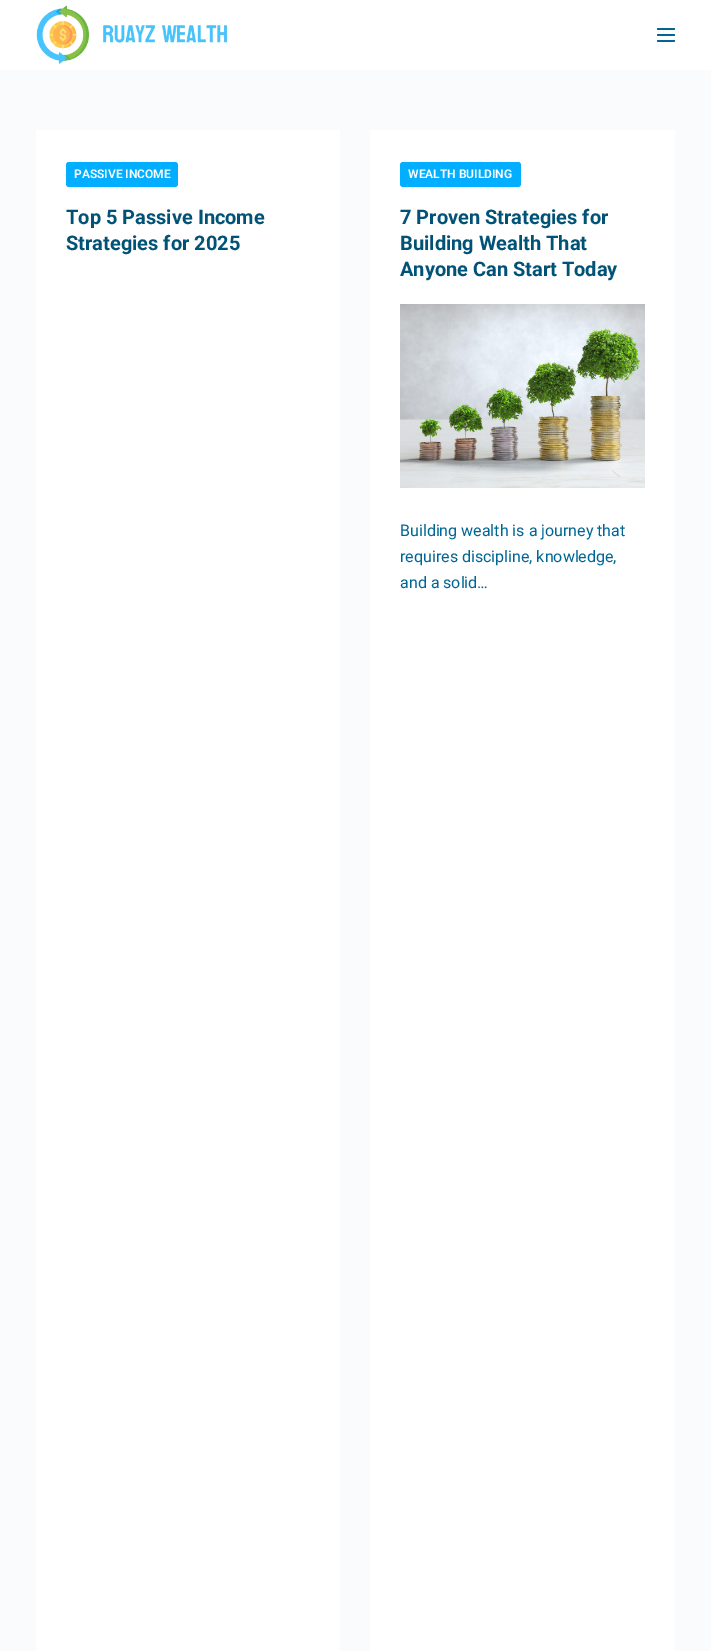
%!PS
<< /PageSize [711 1651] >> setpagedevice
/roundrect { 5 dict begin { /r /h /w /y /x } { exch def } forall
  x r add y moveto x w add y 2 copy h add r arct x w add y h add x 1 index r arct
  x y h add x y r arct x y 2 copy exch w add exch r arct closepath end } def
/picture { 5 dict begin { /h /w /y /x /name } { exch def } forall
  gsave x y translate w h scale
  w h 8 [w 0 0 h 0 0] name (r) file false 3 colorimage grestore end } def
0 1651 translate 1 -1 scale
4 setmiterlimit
0.98 0.984 0.988 setrgbcolor
0 0 711 1651 rectfill
1 setgray
0 0 711 70 rectfill
(img1.rgb) 36 5 192 59 picture
0 0.4 0.584 setrgbcolor
657 28 18 2 1 roundrect fill
657 34 18 2 1 roundrect fill
657 40 18 2 1 roundrect fill
1 setgray
36 130 304 1521 rectfill
0.004 0.682 1 setrgbcolor
66 162 112 25 3 roundrect fill
/Roboto-SemiBold [12 0 0 -12 0 0] selectfont
1 setgray
74 178 moveto (PASSIVE INCOME) show
/Roboto-Bold [20 0 0 -20 0 0] selectfont
0 0.322 0.467 setrgbcolor
66 224 moveto (Top 5 Passive Income) show
66 250 moveto (Strategies for 2025) show
1 setgray
370 130 305 1521 rectfill
0.004 0.682 1 setrgbcolor
400 162 121 25 3 roundrect fill
/Roboto-SemiBold [12 0 0 -12 0 0] selectfont
1 setgray
408 178 moveto (WEALTH BUILDING) show
/Roboto-Bold [20 0 0 -20 0 0] selectfont
0 0.322 0.467 setrgbcolor
400 224 moveto (7 Proven Strategies for) show
400 250 moveto (Building Wealth That) show
400 276 moveto (Anyone Can Start Today) show
(img2.rgb) 400 304 245 184 picture
/Roboto-Regular [16 0 0 -16 0 0] selectfont
0 0.4 0.584 setrgbcolor
400 536 moveto (Building wealth is a journey that) show
400 562 moveto (requires discipline, knowledge,) show
400 588 moveto (and a solid…) show
showpage
